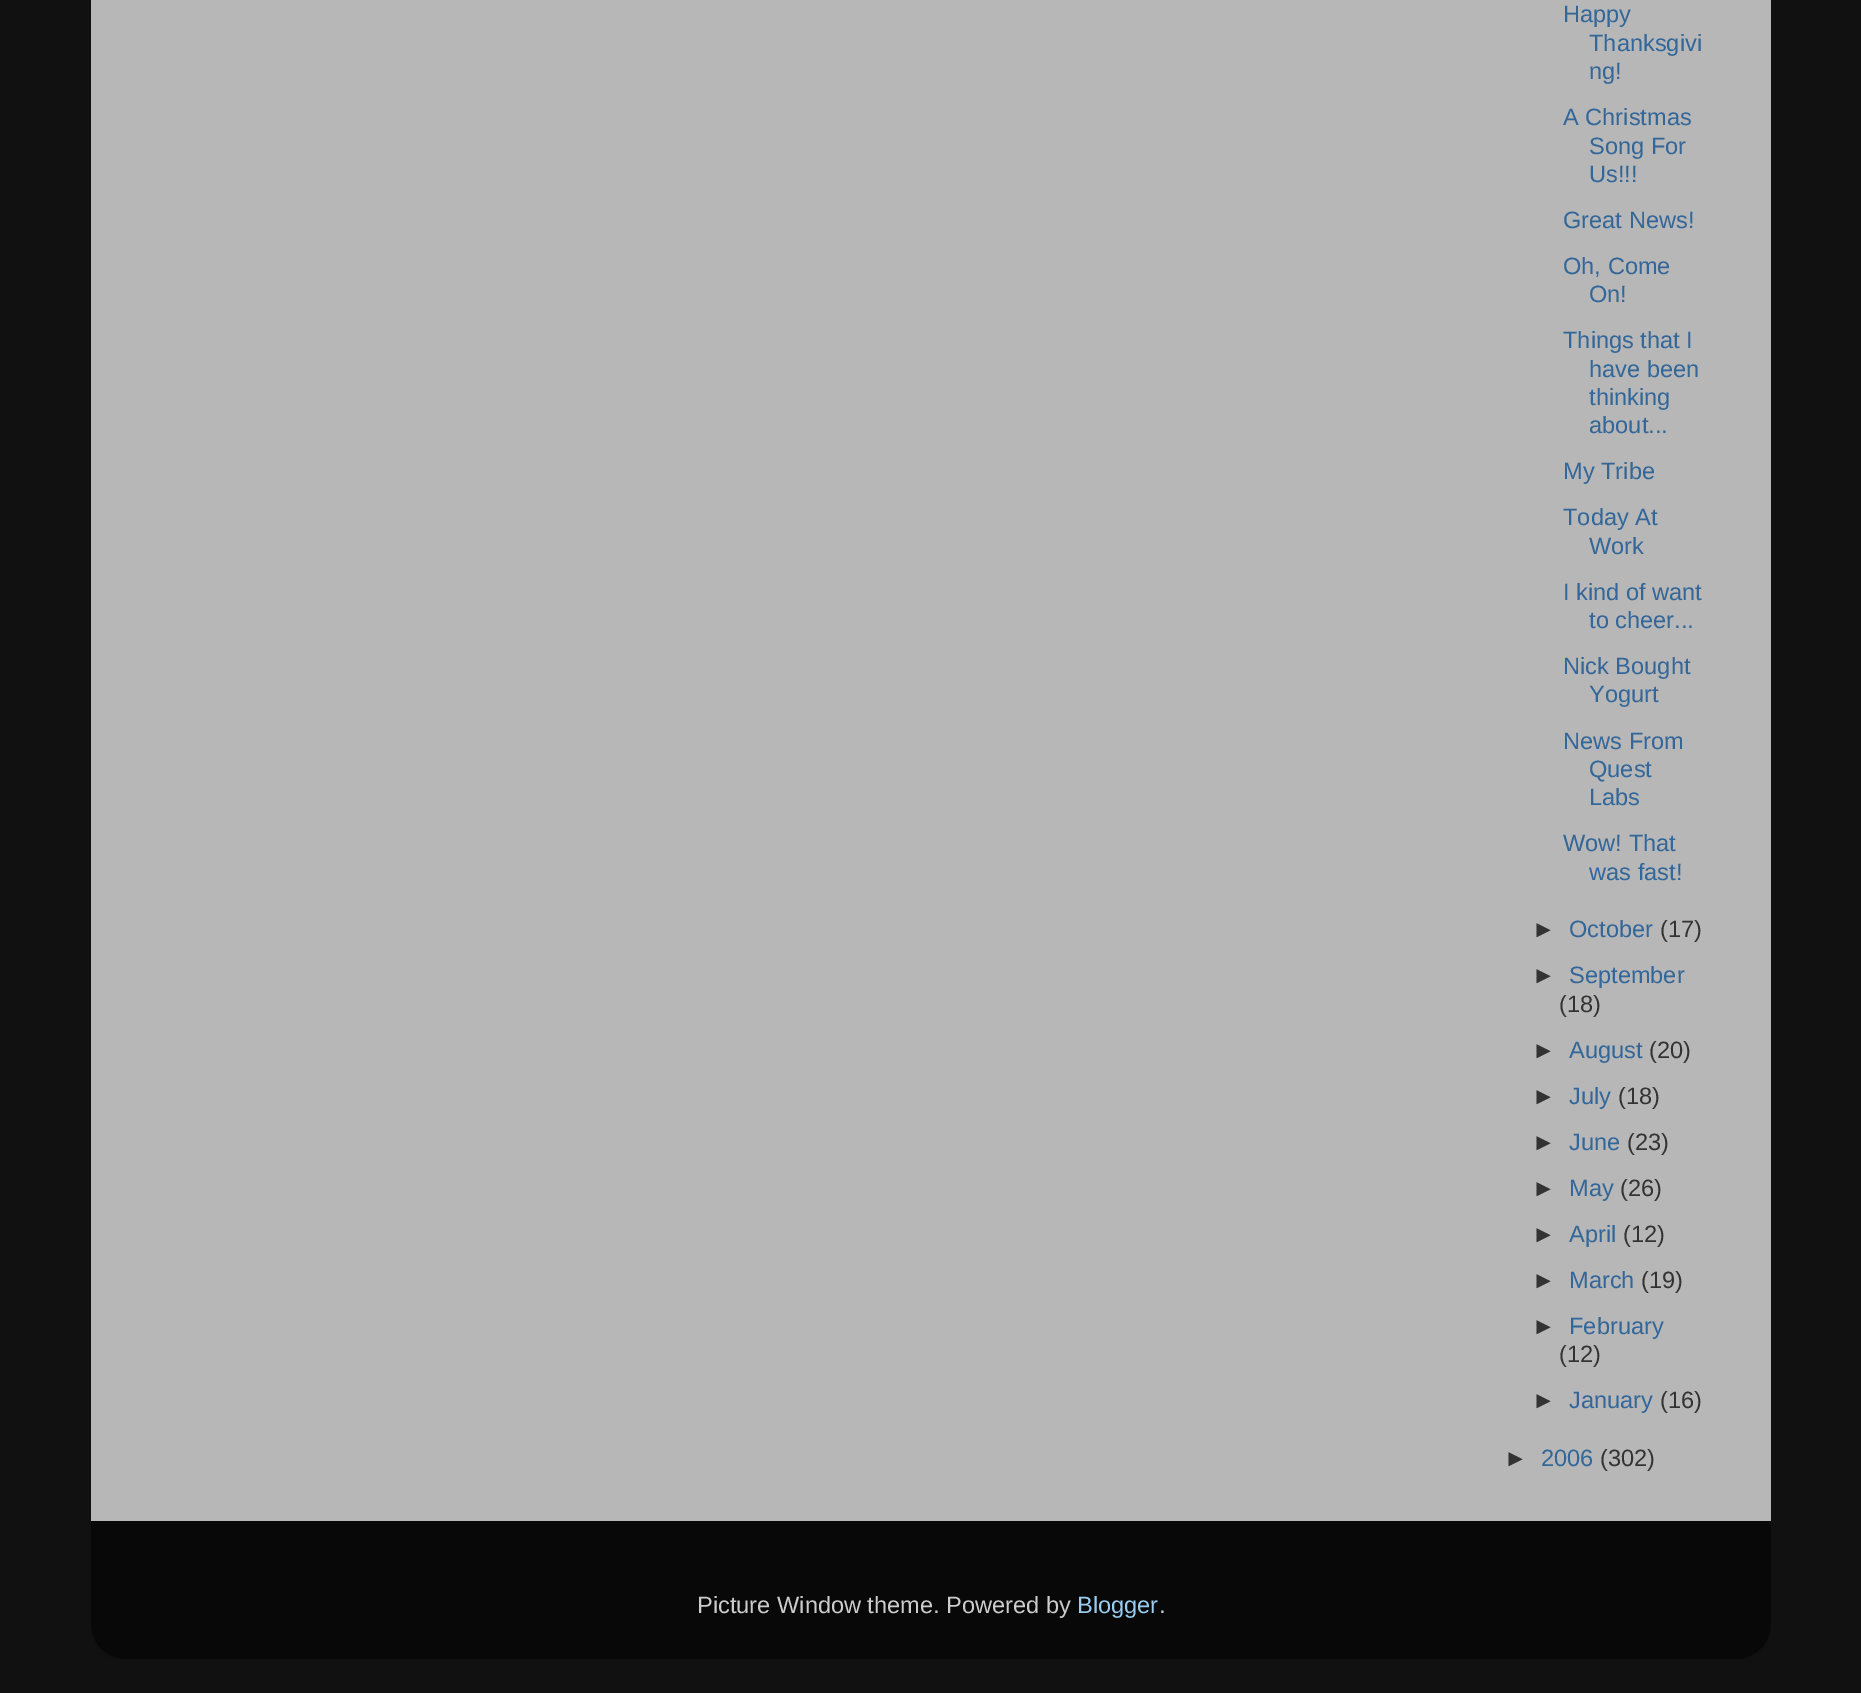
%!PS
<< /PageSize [1861 1693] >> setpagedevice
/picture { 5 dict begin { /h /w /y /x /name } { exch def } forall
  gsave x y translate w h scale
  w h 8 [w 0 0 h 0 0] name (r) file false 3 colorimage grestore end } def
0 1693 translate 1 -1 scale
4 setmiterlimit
0.067 setgray
0 0 1861 1693 rectfill
0.718 setgray
91 0 1680 1521 rectfill
/LiberationSans-Regular [23.6 0 0 -23.6 0 0] selectfont
0.2 0.4 0.6 setrgbcolor
1563 22 moveto (Happy) show
1589 51 moveto (Thanksgivi) show
1589 79 moveto (ng!) show
1563 125 moveto (A Christmas) show
1589 154 moveto (Song For) show
1589 182 moveto (Us!!!) show
1563 228 moveto (Great News!) show
1563 274 moveto (Oh, Come) show
1589 302 moveto (On!) show
1563 348 moveto (Things that I) show
1589 377 moveto (have been) show
1589 405 moveto (thinking) show
1589 433 moveto (about...) show
1563 479 moveto (My Tribe) show
1563 525 moveto (Today At) show
1589 554 moveto (Work) show
1563 600 moveto (I kind of want) show
1589 628 moveto (to cheer...) show
1563 674 moveto (Nick Bought) show
1589 702 moveto (Yogurt) show
1563 749 moveto (News From) show
1589 777 moveto (Quest) show
1589 805 moveto (Labs) show
1563 851 moveto (Wow! That) show
1589 880 moveto (was fast!) show
0.2 setgray
1532 937 moveto (►) show
0.2 0.4 0.6 setrgbcolor
1569 937 moveto (October) show
0.2 setgray
1660 937 moveto (\(17\)) show
1532 983 moveto (►) show
0.2 0.4 0.6 setrgbcolor
1569 983 moveto (September) show
0.2 setgray
1559 1012 moveto (\(18\)) show
1532 1058 moveto (►) show
0.2 0.4 0.6 setrgbcolor
1569 1058 moveto (August) show
0.2 setgray
1649 1058 moveto (\(20\)) show
1532 1104 moveto (►) show
0.2 0.4 0.6 setrgbcolor
1569 1104 moveto (July) show
0.2 setgray
1618 1104 moveto (\(18\)) show
1532 1150 moveto (►) show
0.2 0.4 0.6 setrgbcolor
1569 1150 moveto (June) show
0.2 setgray
1627 1150 moveto (\(23\)) show
1532 1196 moveto (►) show
0.2 0.4 0.6 setrgbcolor
1569 1196 moveto (May) show
0.2 setgray
1620 1196 moveto (\(26\)) show
1532 1242 moveto (►) show
0.2 0.4 0.6 setrgbcolor
1569 1242 moveto (April) show
0.2 setgray
1623 1242 moveto (\(12\)) show
1532 1288 moveto (►) show
0.2 0.4 0.6 setrgbcolor
1569 1288 moveto (March) show
0.2 setgray
1641 1288 moveto (\(19\)) show
1532 1334 moveto (►) show
0.2 0.4 0.6 setrgbcolor
1569 1334 moveto (February) show
0.2 setgray
1559 1362 moveto (\(12\)) show
1532 1408 moveto (►) show
0.2 0.4 0.6 setrgbcolor
1569 1408 moveto (January) show
0.2 setgray
1660 1408 moveto (\(16\)) show
1504 1466 moveto (►) show
0.2 0.4 0.6 setrgbcolor
1541 1466 moveto (2006) show
0.2 setgray
1600 1466 moveto (\(302\)) show
(img1.rgb) 91 1521 1680 138 picture
0.8 setgray
697 1613 moveto (Picture Window theme. Powered by) show
0.6 0.8 0.933 setrgbcolor
1077 1613 moveto (Blogger) show
0.8 setgray
1159 1613 moveto (.) show
showpage
